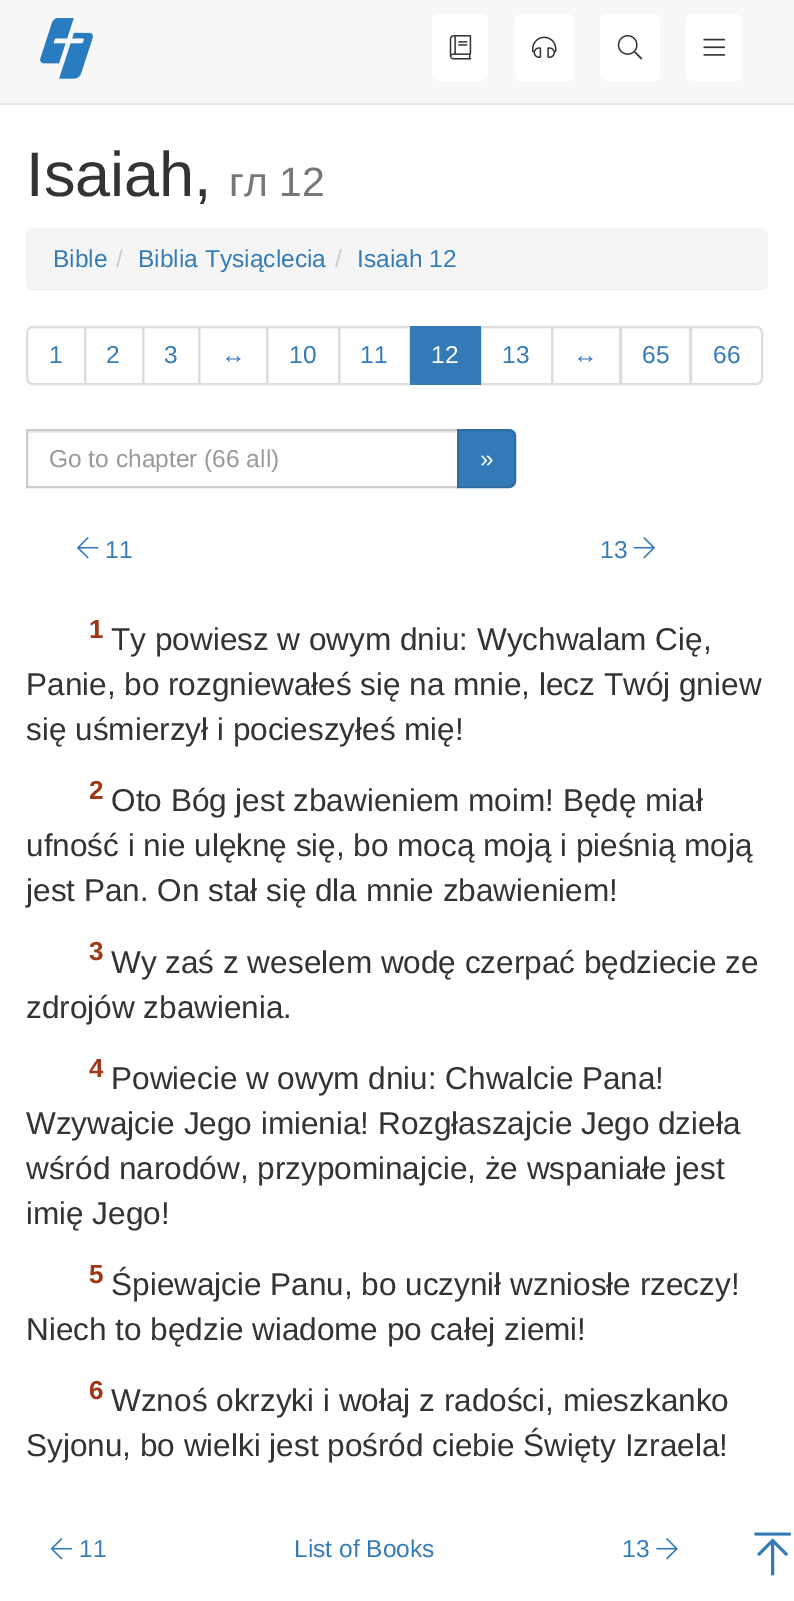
%!PS
<< /PageSize [794 1601] >> setpagedevice
/roundrect { 5 dict begin { /r /h /w /y /x } { exch def } forall
  x r add y moveto x w add y 2 copy h add r arct x w add y h add x 1 index r arct
  x y h add x y r arct x y 2 copy exch w add exch r arct closepath end } def
/picture { 5 dict begin { /h /w /y /x /name } { exch def } forall
  gsave x y translate w h scale
  w h 8 [w 0 0 h 0 0] name (r) file false 3 colorimage grestore end } def
0 1601 translate 1 -1 scale
4 setmiterlimit
1 setgray
0 0 794 1601 rectfill
0.973 setgray
0 0 794 103 rectfill
0.906 setgray
0 103 794 2 rectfill
(img1.rgb) 40 18 53 61 picture
1 setgray
432 14 56 67 7 roundrect fill
(img2.rgb) 449 35 23 25 picture
515 14 59 67 7 roundrect fill
(img3.rgb) 532 36 25 22 picture
600 14 60 67 7 roundrect fill
(img4.rgb) 617 35 26 25 picture
686 14 56 67 7 roundrect fill
(img5.rgb) 703 38 22 18 picture
/LiberationSans-Regular [63 0 0 -63 0 0] selectfont
0.2 setgray
26 196 moveto (Isaiah,) show
/LiberationSans-Regular [41 0 0 -41 0 0] selectfont
0.467 setgray
229 196 moveto (гл 12) show
0.961 setgray
26 228 742 63 7 roundrect fill
/LiberationSans-Regular [24.5 0 0 -24.5 0 0] selectfont
0.2 0.478 0.718 setrgbcolor
53 267 moveto (Bible) show
0.8 setgray
116 267 moveto (/) show
0.2 0.478 0.718 setrgbcolor
138 267 moveto (Biblia Tysiąclecia) show
0.8 setgray
335 267 moveto (/) show
0.2 0.478 0.718 setrgbcolor
357 267 moveto (Isaiah 12) show
0.867 setgray
2 setlinewidth
newpath 33 327 moveto 85 327 lineto 85 384 lineto 33 384 lineto 29.5 384 27 381.5 27 378 curveto 27 333 lineto 27 329.5 29.5 327 33 327 curveto closepath stroke
0.2 0.478 0.718 setrgbcolor
49 363 moveto (1) show
0.867 setgray
85 327 58 57 rectstroke
0.2 0.478 0.718 setrgbcolor
106 363 moveto (2) show
0.867 setgray
143 327 56 57 rectstroke
0.2 0.478 0.718 setrgbcolor
164 363 moveto (3) show
0.867 setgray
199 327 68 57 rectstroke
0.2 0.478 0.718 setrgbcolor
221 363 moveto (↔) show
0.867 setgray
267 327 72 57 rectstroke
0.2 0.478 0.718 setrgbcolor
289 363 moveto (10) show
0.867 setgray
339 327 71 57 rectstroke
0.2 0.478 0.718 setrgbcolor
360 363 moveto (11) show
0.867 setgray
481 327 71 57 rectstroke
0.2 0.478 0.718 setrgbcolor
410 326 71 59 rectfill
1 setgray
431 363 moveto (12) show
0.2 0.478 0.718 setrgbcolor
502 363 moveto (13) show
0.867 setgray
552 327 68 57 rectstroke
0.2 0.478 0.718 setrgbcolor
573 363 moveto (↔) show
0.867 setgray
621 327 69 57 rectstroke
0.2 0.478 0.718 setrgbcolor
642 363 moveto (65) show
1 setgray
newpath 691 327 moveto 756 327 lineto 759.5 327 762 329.5 762 333 curveto 762 378 lineto 762 381.5 759.5 384 756 384 curveto 691 384 lineto closepath gsave fill grestore
0.867 setgray
stroke
0.2 0.478 0.718 setrgbcolor
713 363 moveto (66) show
0.925 setgray
28 431 429 2 rectfill
0.8 setgray
27 430 431 57 rectstroke
0.6 setgray
49 467 moveto (Go to chapter \(66 all\)) show
0.2 0.478 0.718 setrgbcolor
newpath 458 430 moveto 509 430 lineto 512.5 430 515 432.5 515 436 curveto 515 481 lineto 515 484.5 512.5 487 509 487 curveto 458 487 lineto closepath gsave fill grestore
0.18 0.427 0.643 setrgbcolor
stroke
1 setgray
480 467 moveto (») show
(img6.rgb) 77 537 22 22 picture
0.2 0.478 0.718 setrgbcolor
105 558 moveto (11) show
600 558 moveto (13) show
(img7.rgb) 633 537 22 22 picture
/LiberationSans-Bold [26 0 0 -26 0 0] selectfont
0.624 0.22 0.098 setrgbcolor
89 638 moveto (1) show
/LiberationSans-Regular [31.5 0 0 -31.5 0 0] selectfont
0.2 setgray
111 650 moveto (Ty powiesz w owym dniu: Wychwalam Cię,) show
26 695 moveto (Panie, bo rozgniewałeś się na mnie, lecz Twój gniew) show
26 740 moveto (się uśmierzył i pocieszyłeś mię!) show
/LiberationSans-Bold [26 0 0 -26 0 0] selectfont
0.624 0.22 0.098 setrgbcolor
89 799 moveto (2) show
/LiberationSans-Regular [31.5 0 0 -31.5 0 0] selectfont
0.2 setgray
111 811 moveto (Oto Bóg jest zbawieniem moim! Będę miał) show
26 856 moveto (ufność i nie ulęknę się, bo mocą moją i pieśnią moją) show
26 901 moveto (jest Pan. On stał się dla mnie zbawieniem!) show
/LiberationSans-Bold [26 0 0 -26 0 0] selectfont
0.624 0.22 0.098 setrgbcolor
89 960 moveto (3) show
/LiberationSans-Regular [31.5 0 0 -31.5 0 0] selectfont
0.2 setgray
111 973 moveto (Wy zaś z weselem wodę czerpać będziecie ze) show
26 1018 moveto (zdrojów zbawienia.) show
/LiberationSans-Bold [26 0 0 -26 0 0] selectfont
0.624 0.22 0.098 setrgbcolor
89 1077 moveto (4) show
/LiberationSans-Regular [31.5 0 0 -31.5 0 0] selectfont
0.2 setgray
111 1089 moveto (Powiecie w owym dniu: Chwalcie Pana!) show
26 1134 moveto (Wzywajcie Jego imienia! Rozgłaszajcie Jego dzieła) show
26 1179 moveto (wśród narodów, przypominajcie, że wspaniałe jest) show
26 1224 moveto (imię Jego!) show
/LiberationSans-Bold [26 0 0 -26 0 0] selectfont
0.624 0.22 0.098 setrgbcolor
89 1283 moveto (5) show
/LiberationSans-Regular [31.5 0 0 -31.5 0 0] selectfont
0.2 setgray
111 1295 moveto (Śpiewajcie Panu, bo uczynił wzniosłe rzeczy!) show
26 1340 moveto (Niech to będzie wiadome po całej ziemi!) show
/LiberationSans-Bold [26 0 0 -26 0 0] selectfont
0.624 0.22 0.098 setrgbcolor
89 1399 moveto (6) show
/LiberationSans-Regular [31.5 0 0 -31.5 0 0] selectfont
0.2 setgray
111 1411 moveto (Wznoś okrzyki i wołaj z radości, mieszkanko) show
26 1456 moveto (Syjonu, bo wielki jest pośród ciebie Święty Izraela!) show
(img8.rgb) 50 1538 23 22 picture
/LiberationSans-Regular [24.5 0 0 -24.5 0 0] selectfont
0.2 0.478 0.718 setrgbcolor
79 1557 moveto (11) show
294 1557 moveto (List of Books) show
622 1557 moveto (13) show
(img9.rgb) 656 1538 22 22 picture
(img10.rgb) 754 1532 37 44 picture
showpage
